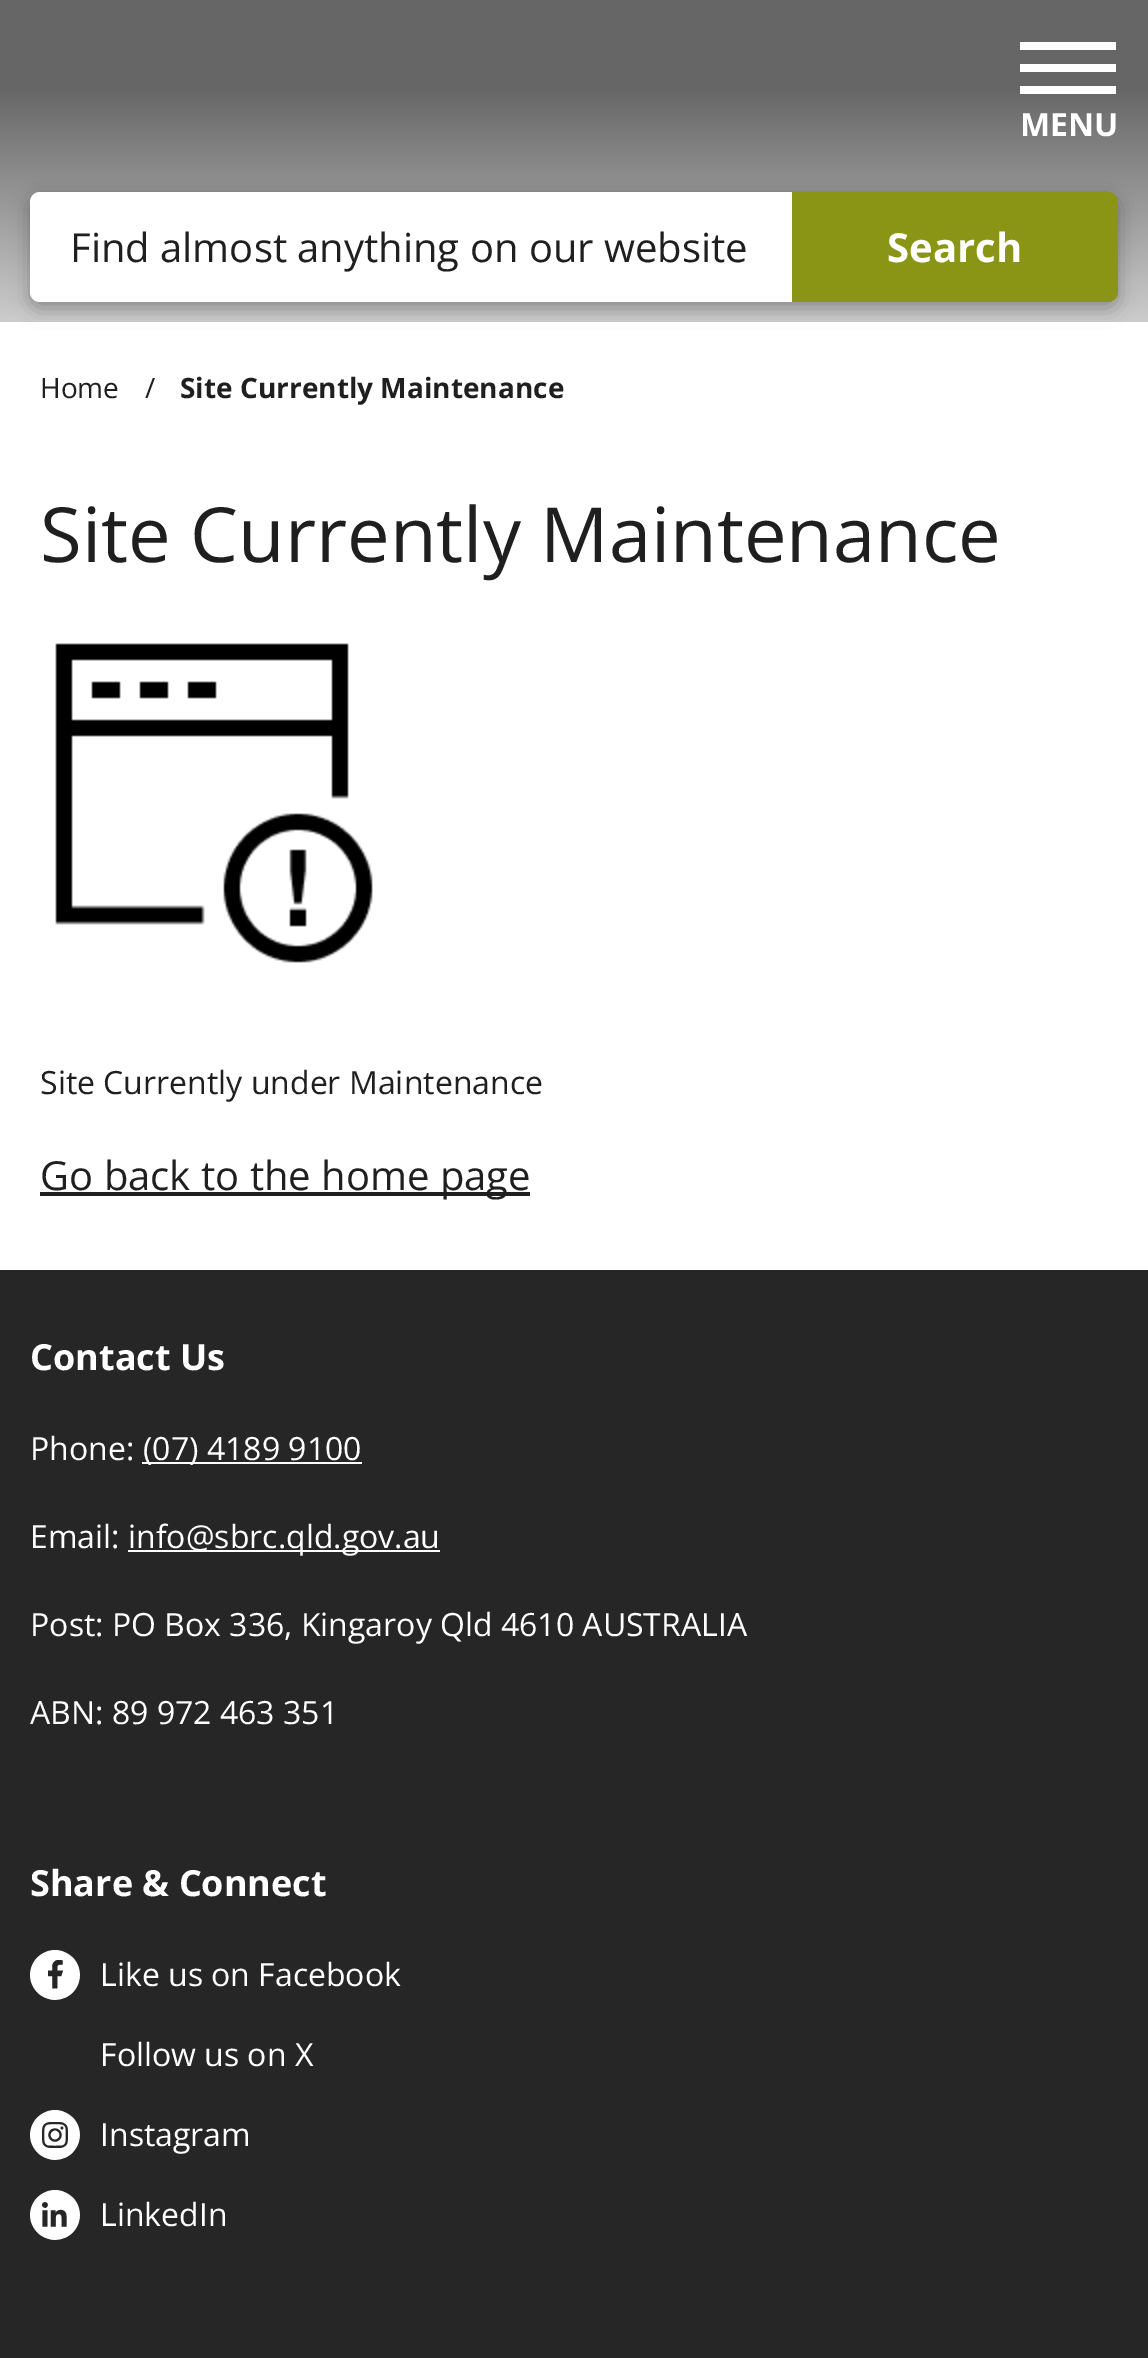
%!PS
<< /PageSize [1148 2358] /PageUsesTransparency true >> setpagedevice
/alpha { dup .setfillconstantalpha .setstrokeconstantalpha } def
/roundrect { 5 dict begin { /r /h /w /y /x } { exch def } forall
  x r add y moveto x w add y 2 copy h add r arct x w add y h add x 1 index r arct
  x y h add x y r arct x y 2 copy exch w add exch r arct closepath end } def
/shadow { 12 dict begin { /a /b /q /h /w /y /x } { exch def } forall gsave /was 0 def
  9 -2 -9 { dup b mul 4 div /e exch def 1 sub .425 mul 2.718 exch exp 1 add a .99 .min exch div /now exch def
    1 1 now sub 1 was sub div sub alpha /was now def
    w h .min e 2 mul add 0 gt { x e sub y e sub w e 2 mul add h e 2 mul add
      q e add b .6 mul add w h .min 2 div e add .min 0 .max roundrect fill } if } for grestore end } def
/picture { 5 dict begin { /h /w /y /x /name } { exch def } forall
  gsave x y translate w h scale
  w h 8 [w 0 0 h 0 0] name (r) file false 3 colorimage grestore end } def
0 .pushpdf14devicefilter
0 2358 translate 1 -1 scale
4 setmiterlimit
1 setgray
0 0 1148 2358 rectfill
gsave newpath 0 0 moveto 1148 0 lineto 1148 322 lineto 0 322 lineto closepath clip newpath
<< /ShadingType 2 /ColorSpace /DeviceRGB /Coords [574 -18 574 322] /Extend [true true] /Function << /FunctionType 3 /Domain [0 1] /Functions [<< /FunctionType 2 /Domain [0 1] /C0 [0.4 0.4 0.4] /C1 [0.4 0.4 0.4] /N 1 >> << /FunctionType 2 /Domain [0 1] /C0 [0.4 0.4 0.4] /C1 [0.804 0.804 0.804] /N 1 >>] /Bounds [0.31] /Encode [0 1 0 1] >> >> shfill grestore
1020 64 96 8 rectfill
1020 42 96 8 rectfill
1020 86 96 8 rectfill
/OpenSans-Bold [32 0 0 -32 0 0] selectfont
1020 136 moveto (MENU) show
0 setgray
30 198 1088 110 10 10 0.3 shadow
1 setgray
newpath 40 192 moveto 792 192 lineto 792 302 lineto 40 302 lineto 34.5 302 30 297.5 30 292 curveto 30 202 lineto 30 196.5 34.5 192 40 192 curveto closepath fill
/OpenSans-Regular [40 0 0 -40 0 0] selectfont
0.122 setgray
70 262 moveto (Find almost anything on our website) show
0.541 0.584 0.082 setrgbcolor
newpath 792 192 moveto 1108 192 lineto 1113.5 192 1118 196.5 1118 202 curveto 1118 292 lineto 1118 297.5 1113.5 302 1108 302 curveto 792 302 lineto closepath fill
/OpenSans-Bold [40 0 0 -40 0 0] selectfont
1 setgray
887 262 moveto (Search) show
32 322 1084 4 rectfill
/OpenSans-Regular [28 0 0 -28 0 0] selectfont
0.122 setgray
40 398 moveto (Home) show
145 398 moveto (/) show
/OpenSans-Bold [28 0 0 -28 0 0] selectfont
180 398 moveto (Site Currently Maintenance) show
/OpenSans-Regular [76 0 0 -76 0 0] selectfont
40 562 moveto (Site Currently Maintenance) show
(img1.rgb) 55 643 318 320 picture
/OpenSans-Regular [32 0 0 -32 0 0] selectfont
40 1094 moveto (Site Currently under Maintenance) show
40 1192 490 4 rectfill
/OpenSans-Regular [40 0 0 -40 0 0] selectfont
40 1190 moveto (Go back to the home page) show
0.149 setgray
0 1270 1148 1088 rectfill
/OpenSans-Bold [36 0 0 -36 0 0] selectfont
1 setgray
30 1370 moveto (Contact Us) show
/OpenSans-Regular [32 0 0 -32 0 0] selectfont
30 1460 moveto (Phone:) show
142 1462 220 2 rectfill
143 1460 moveto (\(07\) 4189 9100) show
30 1548 moveto (Email:) show
128 1550 312 2 rectfill
128 1548 moveto (info@sbrc.qld.gov.au) show
30 1636 moveto (Post: PO Box 336, Kingaroy Qld 4610 AUSTRALIA) show
30 1724 moveto (ABN: 89 972 463 351) show
/OpenSans-Bold [36 0 0 -36 0 0] selectfont
30 1896 moveto (Share & Connect) show
(img2.rgb) 30 1950 50 50 picture
/OpenSans-Regular [32 0 0 -32 0 0] selectfont
100 1986 moveto (Like us on Facebook) show
100 2066 moveto (Follow us on X) show
(img3.rgb) 30 2110 50 50 picture
100 2146 moveto (Instagram) show
(img4.rgb) 30 2190 50 50 picture
100 2226 moveto (LinkedIn) show
.poppdf14devicefilter showpage
